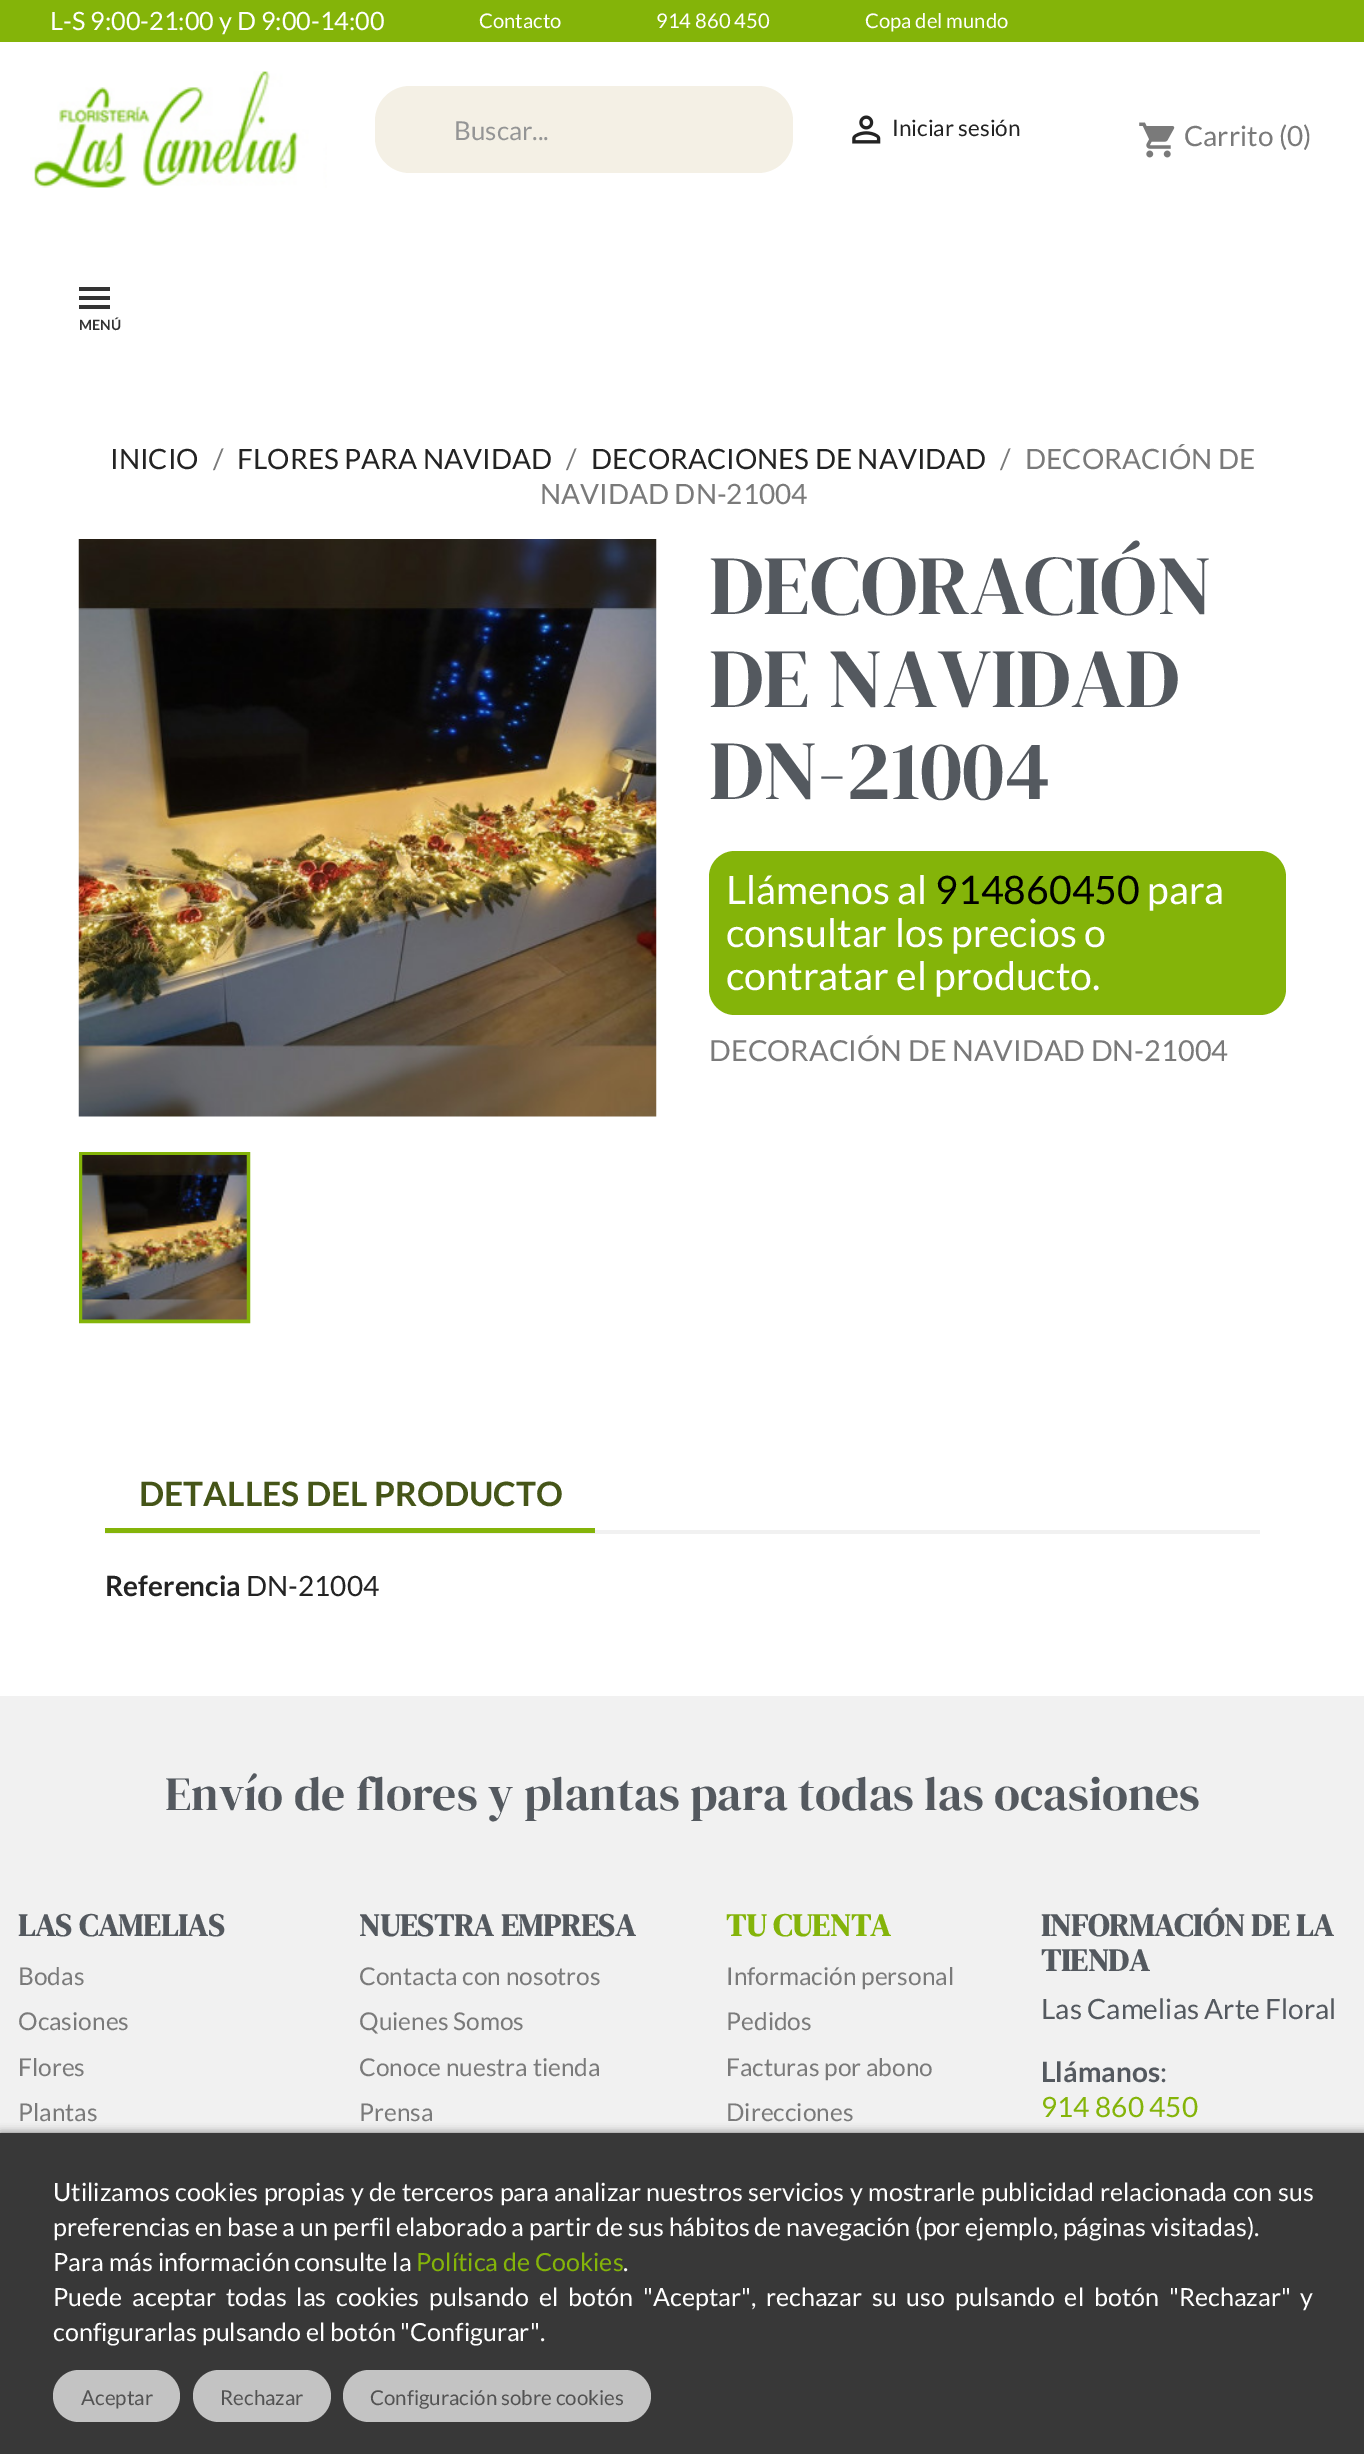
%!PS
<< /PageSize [1364 2454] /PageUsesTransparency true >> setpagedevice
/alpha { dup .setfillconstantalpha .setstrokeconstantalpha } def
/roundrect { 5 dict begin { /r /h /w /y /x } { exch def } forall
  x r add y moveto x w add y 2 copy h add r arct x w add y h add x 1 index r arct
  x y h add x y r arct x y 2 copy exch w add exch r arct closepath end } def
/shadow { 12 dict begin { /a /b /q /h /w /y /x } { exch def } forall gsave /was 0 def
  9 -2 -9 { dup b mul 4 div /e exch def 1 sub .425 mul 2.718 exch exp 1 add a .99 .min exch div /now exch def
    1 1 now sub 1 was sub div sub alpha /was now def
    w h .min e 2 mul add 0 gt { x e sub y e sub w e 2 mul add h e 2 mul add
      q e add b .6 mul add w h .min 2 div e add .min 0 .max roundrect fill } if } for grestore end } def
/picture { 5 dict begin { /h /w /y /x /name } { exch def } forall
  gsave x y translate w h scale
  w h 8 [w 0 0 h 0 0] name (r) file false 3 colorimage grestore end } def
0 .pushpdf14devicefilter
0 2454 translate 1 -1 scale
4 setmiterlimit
1 setgray
0 0 1364 2454 rectfill
0.518 0.706 0.035 setrgbcolor
0 0 1364 42 rectfill
/Lato-Regular [25.25 0 0 -25.25 0 0] selectfont
1 setgray
50 30 moveto (L-S 9:00-21:00 y D 9:00-14:00) show
/Lato-Regular [20.25 0 0 -20.25 0 0] selectfont
479 28 moveto (Contacto) show
656 28 moveto (914 860 450) show
865 28 moveto (Copa del mundo) show
(img1.rgb) 30 71 297 117 picture
0.957 0.941 0.898 setrgbcolor
375 86 418 87 35 roundrect fill
/Lato-Regular [26 0 0 -26 0 0] selectfont
0.58 0.584 0.584 setrgbcolor
454 140 moveto (Buscar...) show
(img2.rgb) 852 115 29 29 picture
/Lato-Regular [22.5 0 0 -22.5 0 0] selectfont
0.137 setgray
892 136 moveto (Iniciar sesión) show
(img3.rgb) 1139 122 36 36 picture
/Lato-Regular [28 0 0 -28 0 0] selectfont
0.478 setgray
1184 146 moveto (Carrito \(0\)) show
0.2 setgray
79 287 31 4 rectfill
79 296 31 4 rectfill
79 305 31 4 rectfill
/Lato-Bold [14 0 0 -14 0 0] selectfont
79 330 moveto (MENÚ) show
/Lato-Regular [28 0 0 -28 0 0] selectfont
0.137 setgray
110 469 moveto (INICIO) show
0.478 setgray
213 469 moveto (/) show
0.137 setgray
237 469 moveto (FLORES PARA NAVIDAD) show
0.478 setgray
566 469 moveto (/) show
0.137 setgray
591 469 moveto (DECORACIONES DE NAVIDAD) show
0.478 setgray
1000 469 moveto (/) show
1025 469 moveto (DECORACIÓN DE) show
540 504 moveto (NAVIDAD DN-21004) show
(img4.rgb) 78 539 579 578 picture
0.518 0.706 0.035 setrgbcolor
4 setlinewidth
81 1154 167 167 rectstroke
(img5.rgb) 82 1155 165 165 picture
/DMSerifDisplay-Regular [84 0 0 -84 0 0] selectfont
0.329 0.349 0.373 setrgbcolor
709 614 moveto (DECORACIÓN) show
709 707 moveto (DE NAVIDAD) show
709 799 moveto (DN-21004) show
0.518 0.706 0.035 setrgbcolor
709 851 577 164 26 roundrect fill
/Lato-Regular [39.25 0 0 -39.25 0 0] selectfont
1 setgray
726 904 moveto (Llámenos al) show
0 setgray
935 904 moveto (914860450) show
1 setgray
1147 904 moveto (para) show
726 947 moveto (consultar los precios o) show
726 990 moveto (contratar el producto.) show
/Lato-Regular [28.9 0 0 -28.9 0 0] selectfont
0.478 setgray
709 1061 moveto (DECORACIÓN DE NAVIDAD DN-21004) show
0.945 setgray
105 1530 1155 4 rectfill
0.518 0.706 0.035 setrgbcolor
105 1528 490 5 rectfill
/Lato-Bold [33.6 0 0 -33.6 0 0] selectfont
0.271 0.333 0.094 setrgbcolor
139 1506 moveto (DETALLES DEL PRODUCTO) show
/Lato-Bold [28 0 0 -28 0 0] selectfont
0.137 setgray
105 1596 moveto (Referencia) show
/Lato-Regular [28 0 0 -28 0 0] selectfont
246 1596 moveto (DN-21004) show
0.945 setgray
0 1696 1364 437 rectfill
/DMSerifDisplay-Regular [47.6 0 0 -47.6 0 0] selectfont
0.329 0.349 0.373 setrgbcolor
165 1810 moveto (Envío de flores y plantas para todas las ocasiones) show
/DMSerifDisplay-Bold [31.5 0 0 -31.5 0 0] selectfont
18 1936 moveto (LAS CAMELIAS) show
/Lato-Regular [24.5 0 0 -24.5 0 0] selectfont
0.478 setgray
18 1985 moveto (Bodas) show
18 2030 moveto (Ocasiones) show
18 2076 moveto (Flores) show
18 2121 moveto (Plantas) show
/DMSerifDisplay-Bold [31.5 0 0 -31.5 0 0] selectfont
0.329 0.349 0.373 setrgbcolor
359 1936 moveto (NUESTRA EMPRESA) show
/Lato-Regular [24.5 0 0 -24.5 0 0] selectfont
0.478 setgray
359 1985 moveto (Contacta con nosotros) show
359 2030 moveto (Quienes Somos) show
359 2076 moveto (Conoce nuestra tienda) show
359 2121 moveto (Prensa) show
/DMSerifDisplay-Bold [31.5 0 0 -31.5 0 0] selectfont
0.518 0.706 0.035 setrgbcolor
726 1936 moveto (TU CUENTA) show
/Lato-Regular [24.5 0 0 -24.5 0 0] selectfont
0.478 setgray
726 1985 moveto (Información personal) show
726 2030 moveto (Pedidos) show
726 2076 moveto (Facturas por abono) show
726 2121 moveto (Direcciones) show
/DMSerifDisplay-Bold [31.5 0 0 -31.5 0 0] selectfont
0.329 0.349 0.373 setrgbcolor
1041 1936 moveto (INFORMACIÓN DE LA) show
1041 1971 moveto (TIENDA) show
/Lato-Regular [28 0 0 -28 0 0] selectfont
1041 2019 moveto (Las Camelias Arte Floral) show
/Lato-Bold [28 0 0 -28 0 0] selectfont
1041 2082 moveto (Llámanos) show
/Lato-Regular [28 0 0 -28 0 0] selectfont
1160 2082 moveto (:) show
0.518 0.706 0.035 setrgbcolor
1041 2117 moveto (914 860 450) show
0 setgray
0 2133 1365 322 0 4.5 0.5 shadow
0.22 setgray
0 2133 1364 321 rectfill
/Lato-Regular [25.03 0 0 -25.03 0 0] selectfont
1 setgray
53 2201 moveto 0.75 0 32 (Utilizamos cookies propias y de terceros para analizar nuestros servicios y mostrarle publicidad relacionada con sus) widthshow
53 2236 moveto (preferencias en base a un perfil elaborado a partir de sus hábitos de navegación \(por ejemplo, páginas visitadas\).) show
53 2271 moveto (Para más información consulte la) show
0.518 0.706 0.035 setrgbcolor
416 2271 moveto (Política de Cookies) show
1 setgray
623 2271 moveto (.) show
53 2306 moveto 5.1 0 32 (Puede aceptar todas las cookies pulsando el botón "Aceptar", rechazar su uso pulsando el botón "Rechazar" y) widthshow
53 2341 moveto (configurarlas pulsando el botón "Configurar".) show
0.765 setgray
53 2370 127 52 26 roundrect fill
/Lato-Regular [20.5 0 0 -20.5 0 0] selectfont
0.325 setgray
81 2405 moveto (Aceptar) show
0.765 setgray
193 2370 138 52 26 roundrect fill
0.325 setgray
220 2405 moveto (Rechazar) show
0.765 setgray
343 2370 308 52 26 roundrect fill
0.325 setgray
370 2405 moveto (Configuración sobre cookies) show
.poppdf14devicefilter showpage
